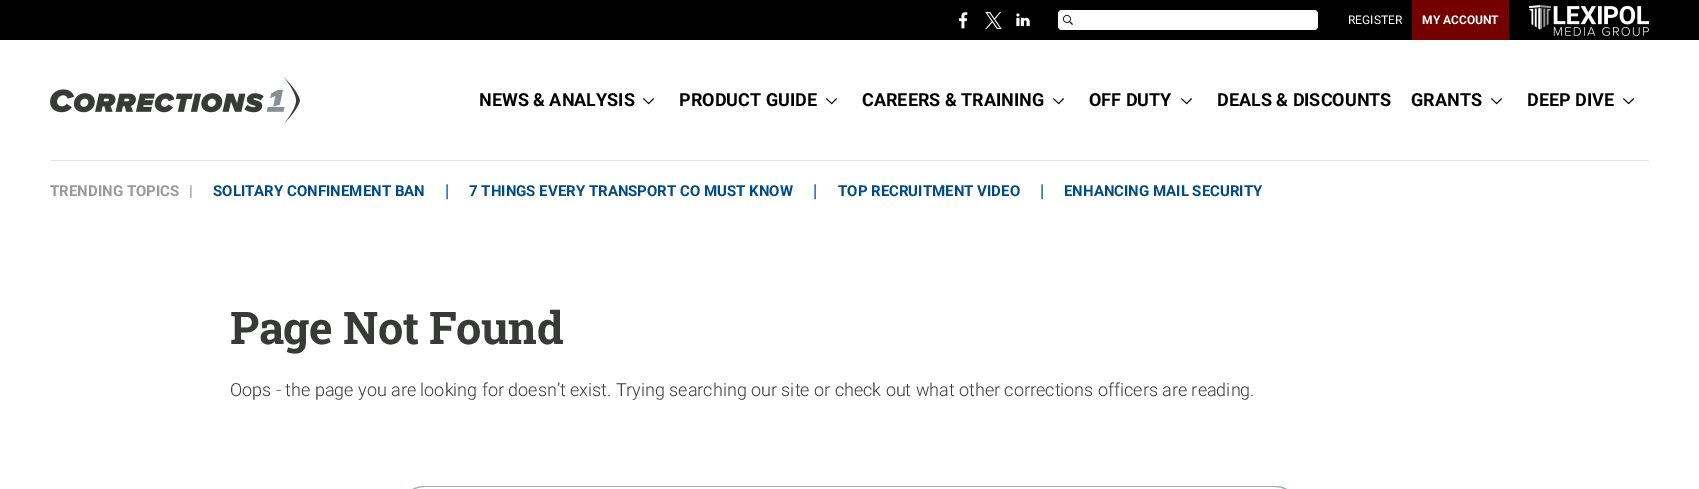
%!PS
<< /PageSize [1699 489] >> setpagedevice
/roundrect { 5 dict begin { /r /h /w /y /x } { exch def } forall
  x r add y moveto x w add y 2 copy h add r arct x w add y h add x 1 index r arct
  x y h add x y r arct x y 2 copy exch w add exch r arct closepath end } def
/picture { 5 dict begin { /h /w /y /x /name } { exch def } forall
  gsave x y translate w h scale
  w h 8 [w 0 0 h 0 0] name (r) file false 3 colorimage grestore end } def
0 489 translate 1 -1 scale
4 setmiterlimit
1 setgray
0 0 1699 489 rectfill
0 setgray
0 0 1699 40 rectfill
(img1.rgb) 959 12 9 17 picture
(img2.rgb) 985 12 17 17 picture
(img3.rgb) 1016 13 14 14 picture
1 setgray
1058 10 260 20 4 roundrect fill
(img4.rgb) 1063 15 10 10 picture
/Roboto-Regular [12 0 0 -12 0 0] selectfont
1348 24 moveto (REGISTER) show
0.459 0 0 setrgbcolor
1412 0 97 40 rectfill
/Roboto-Bold [12 0 0 -12 0 0] selectfont
1 setgray
1422 24 moveto (MY ACCOUNT) show
(img5.rgb) 1529 5 120 31 picture
(img6.rgb) 50 77 250 47 picture
/Roboto-Bold [18 0 0 -18 0 0] selectfont
0 setgray
479 106 moveto (NEWS & ANALYSIS) show
(img7.rgb) 643 98 11 7 picture
679 106 moveto (PRODUCT GUIDE) show
(img7.rgb) 826 98 11 7 picture
862 106 moveto (CAREERS & TRAINING) show
(img7.rgb) 1053 98 11 7 picture
1089 106 moveto (OFF DUTY) show
(img7.rgb) 1181 98 11 7 picture
1217 106 moveto (DEALS & DISCOUNTS) show
1411 106 moveto (GRANTS) show
(img7.rgb) 1491 98 11 7 picture
1527 106 moveto (DEEP DIVE) show
(img7.rgb) 1623 98 11 7 picture
0.886 setgray
50 160 1599 1 rectfill
/Roboto-Bold [15 0 0 -15 0 0] selectfont
0.6 setgray
50 196 moveto (TRENDING TOPICS) show
189 196 moveto (|) show
0 0.294 0.529 setrgbcolor
213 196 moveto (SOLITARY CONFINEMENT BAN) show
/Roboto-Regular [18 0 0 -18 0 0] selectfont
445 197 moveto (|) show
/Roboto-Bold [15 0 0 -15 0 0] selectfont
469 196 moveto (7 THINGS EVERY TRANSPORT CO MUST KNOW) show
/Roboto-Regular [18 0 0 -18 0 0] selectfont
813 197 moveto (|) show
/Roboto-Bold [15 0 0 -15 0 0] selectfont
838 196 moveto (TOP RECRUITMENT VIDEO) show
/Roboto-Regular [18 0 0 -18 0 0] selectfont
1040 197 moveto (|) show
/Roboto-Bold [15 0 0 -15 0 0] selectfont
1064 196 moveto (ENHANCING MAIL SECURITY) show
/RobotoSlab-Bold [45 0 0 -45 0 0] selectfont
0.216 0.227 0.212 setrgbcolor
230 344 moveto -0.5 0 (Page Not Found) ashow
/Roboto-Light [18 0 0 -18 0 0] selectfont
230 396 moveto (Oops - the page you are looking for doesn’t exist. Trying searching our site or check out what other corrections officers are reading.) show
0.635 0.667 0.678 setrgbcolor
newpath 425 486 moveto 1243 486 lineto 1243 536 lineto 425 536 lineto 392 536 392 486 425 486 curveto closepath 425 487 moveto 1243 487 lineto 1243 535 lineto 425 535 lineto 393 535 393 487 425 487 curveto closepath eofill
newpath 1243 486 moveto 1275 486 lineto 1289 486 1300 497 1300 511 curveto 1300 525 1289 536 1275 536 curveto 1243 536 lineto closepath 1243 487 moveto 1275 487 lineto 1288 487 1299 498 1299 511 curveto 1299 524 1288 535 1275 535 curveto 1243 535 lineto closepath eofill
showpage
